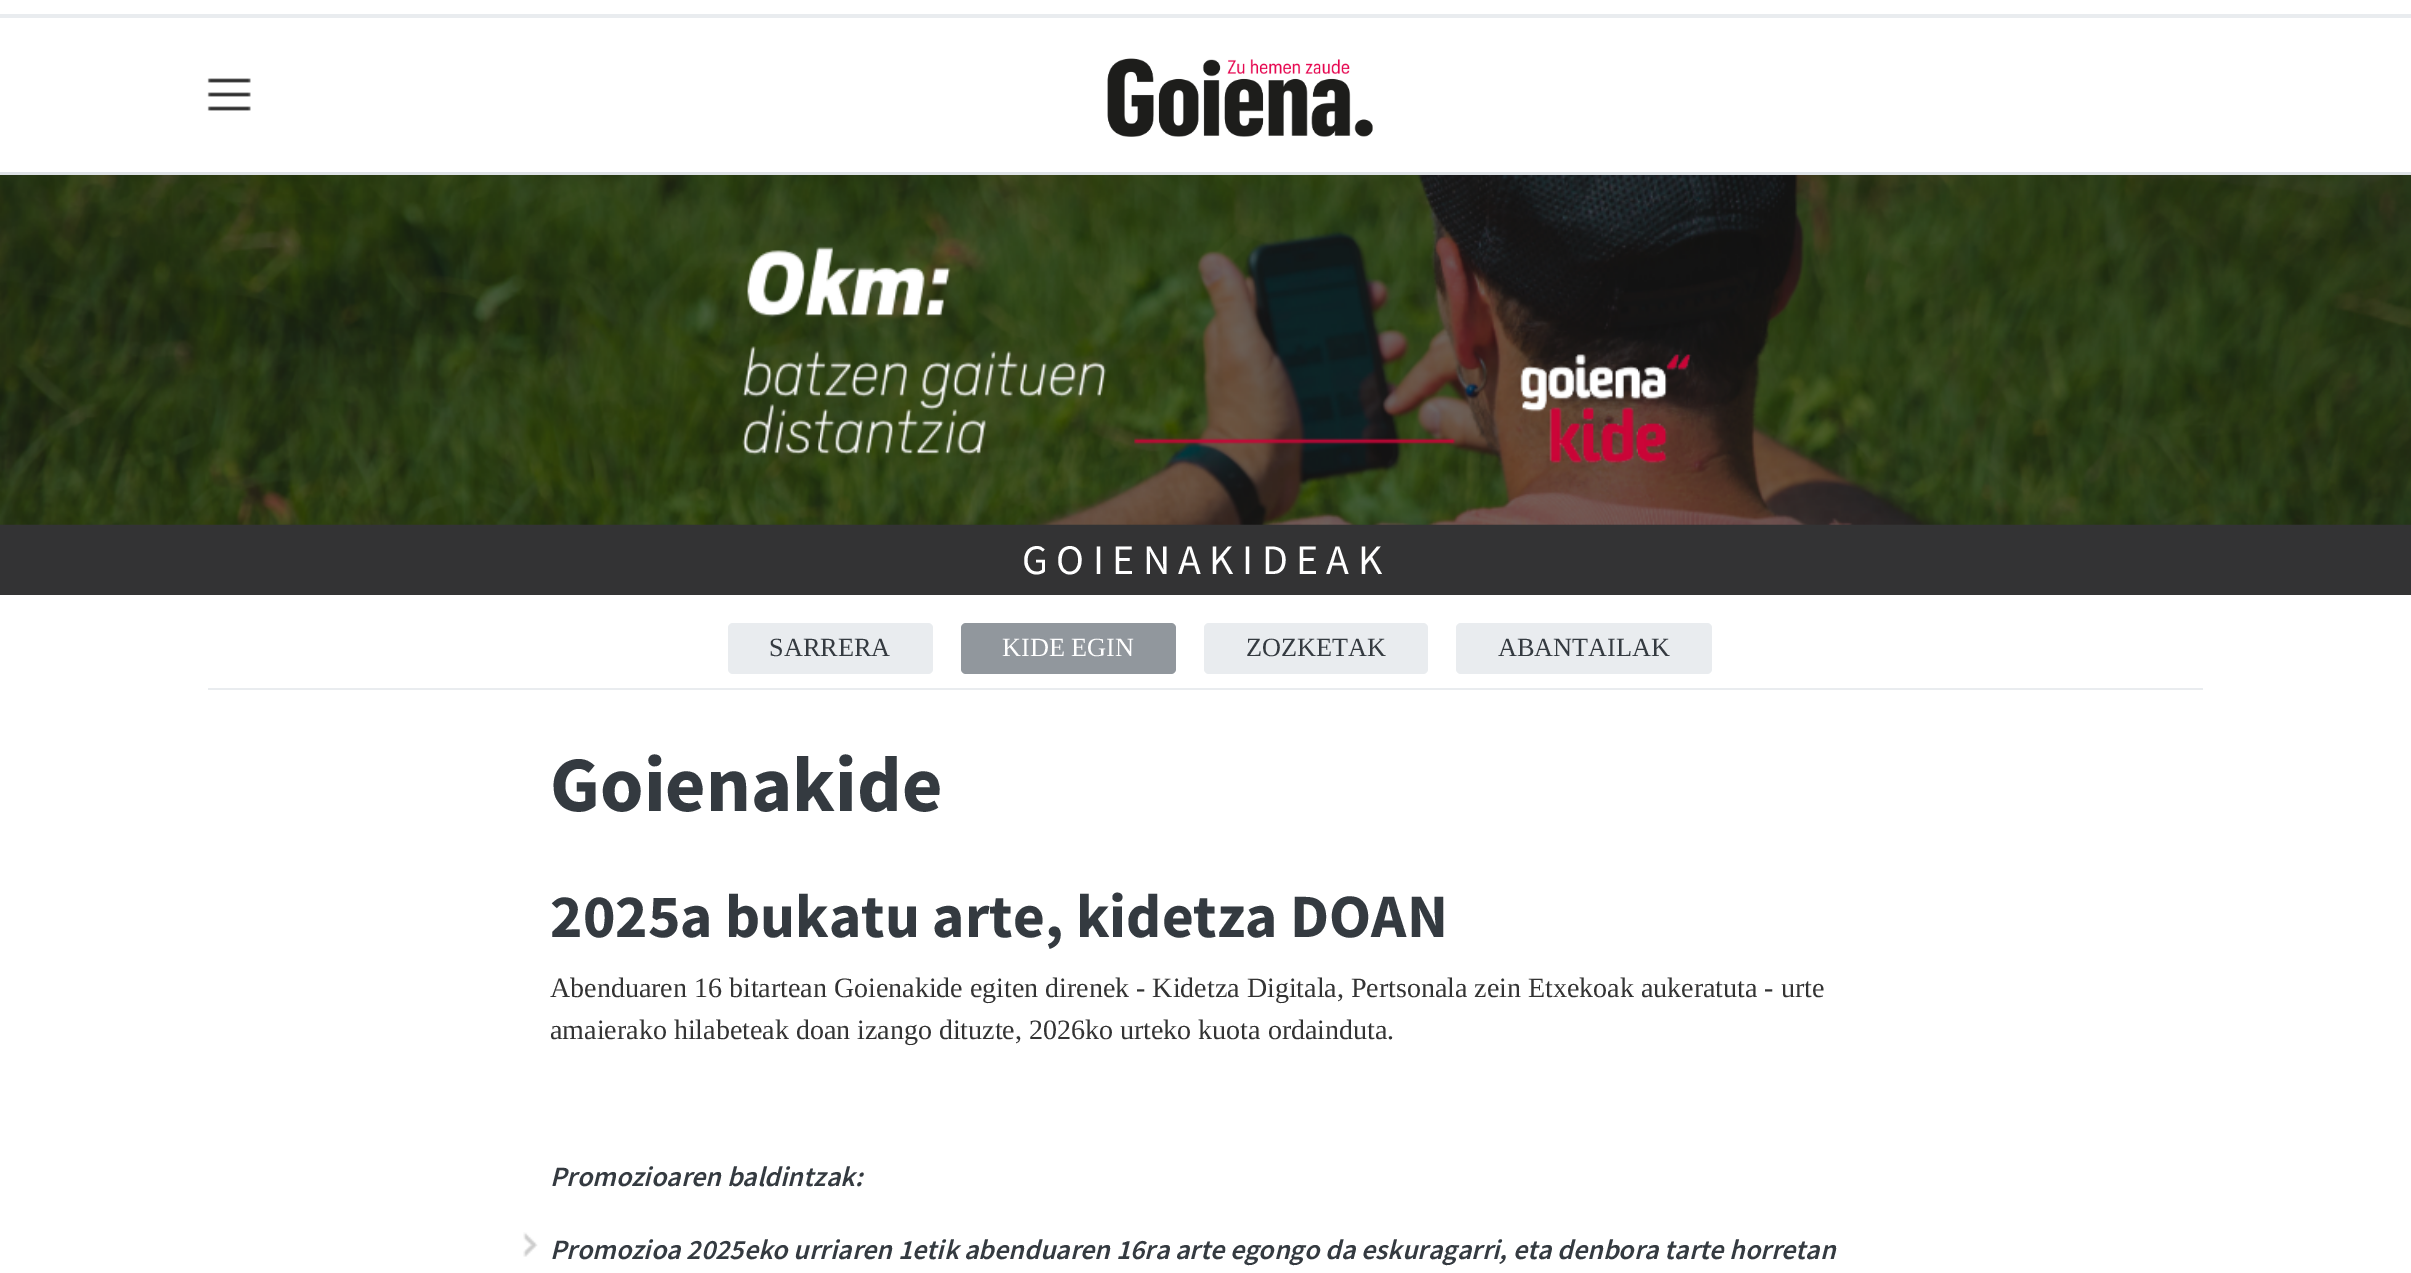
%!PS
<< /PageSize [2411 1273] >> setpagedevice
/roundrect { 5 dict begin { /r /h /w /y /x } { exch def } forall
  x r add y moveto x w add y 2 copy h add r arct x w add y h add x 1 index r arct
  x y h add x y r arct x y 2 copy exch w add exch r arct closepath end } def
/picture { 5 dict begin { /h /w /y /x /name } { exch def } forall
  gsave x y translate w h scale
  w h 8 [w 0 0 h 0 0] name (r) file false 3 colorimage grestore end } def
0 1273 translate 1 -1 scale
4 setmiterlimit
1 setgray
0 0 2411 1273 rectfill
0.914 0.925 0.937 setrgbcolor
0 14 2411 4 rectfill
(img1.rgb) 207 78 44 33 picture
(img2.rgb) 1107 58 266 79 picture
0.871 0.886 0.902 setrgbcolor
0 172 2411 3 rectfill
(img3.rgb) 0 175 2411 350 picture
0.2 0.2 0.204 setrgbcolor
0 525 2411 70 rectfill
/SourceSansPro-Regular [42 0 0 -42 0 0] selectfont
1 setgray
1022 574 moveto 8.4 0 (GOIENAKIDEAK) ashow
0.914 0.925 0.937 setrgbcolor
208 688 1995 2 rectfill
728 623 205 51 5 roundrect fill
/LiberationSerif-Regular [26.25 0 0 -26.25 0 0] selectfont
0.204 0.227 0.251 setrgbcolor
769 656 moveto (SARRERA) show
0.569 0.592 0.616 setrgbcolor
961 623 215 51 5 roundrect fill
1 setgray
1002 656 moveto (KIDE EGIN) show
0.914 0.925 0.937 setrgbcolor
1204 623 224 51 5 roundrect fill
0.204 0.227 0.251 setrgbcolor
1246 656 moveto (ZOZKETAK) show
0.914 0.925 0.937 setrgbcolor
1456 623 256 51 5 roundrect fill
0.204 0.227 0.251 setrgbcolor
1498 656 moveto (ABANTAILAK) show
/SourceSansPro-Bold [78.5 0 0 -78.5 0 0] selectfont
550 811 moveto (Goienakide) show
/SourceSansPro-Bold [61.6 0 0 -61.6 0 0] selectfont
550 937 moveto (2025a bukatu arte, kidetza DOAN) show
/LiberationSerif-Regular [28 0 0 -28 0 0] selectfont
0.2 setgray
550 997 moveto (Abenduaren 16 bitartean Goienakide egiten direnek - Kidetza Digitala, Pertsonala zein Etxekoak aukeratuta - urte) show
550 1039 moveto (amaierako hilabeteak doan izango dituzte, 2026ko urteko kuota ordainduta.) show
/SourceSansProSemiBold-SemiBoldItalic [28 0 0 -28 0 0] selectfont
0.204 0.227 0.251 setrgbcolor
550 1186 moveto (Promozioaren baldintzak:) show
(img4.rgb) 523 1232 15 25 picture
550 1259 moveto (Promozioa 2025eko urriaren 1etik abenduaren 16ra arte egongo da eskuragarri, eta denbora tarte horretan) show
showpage
